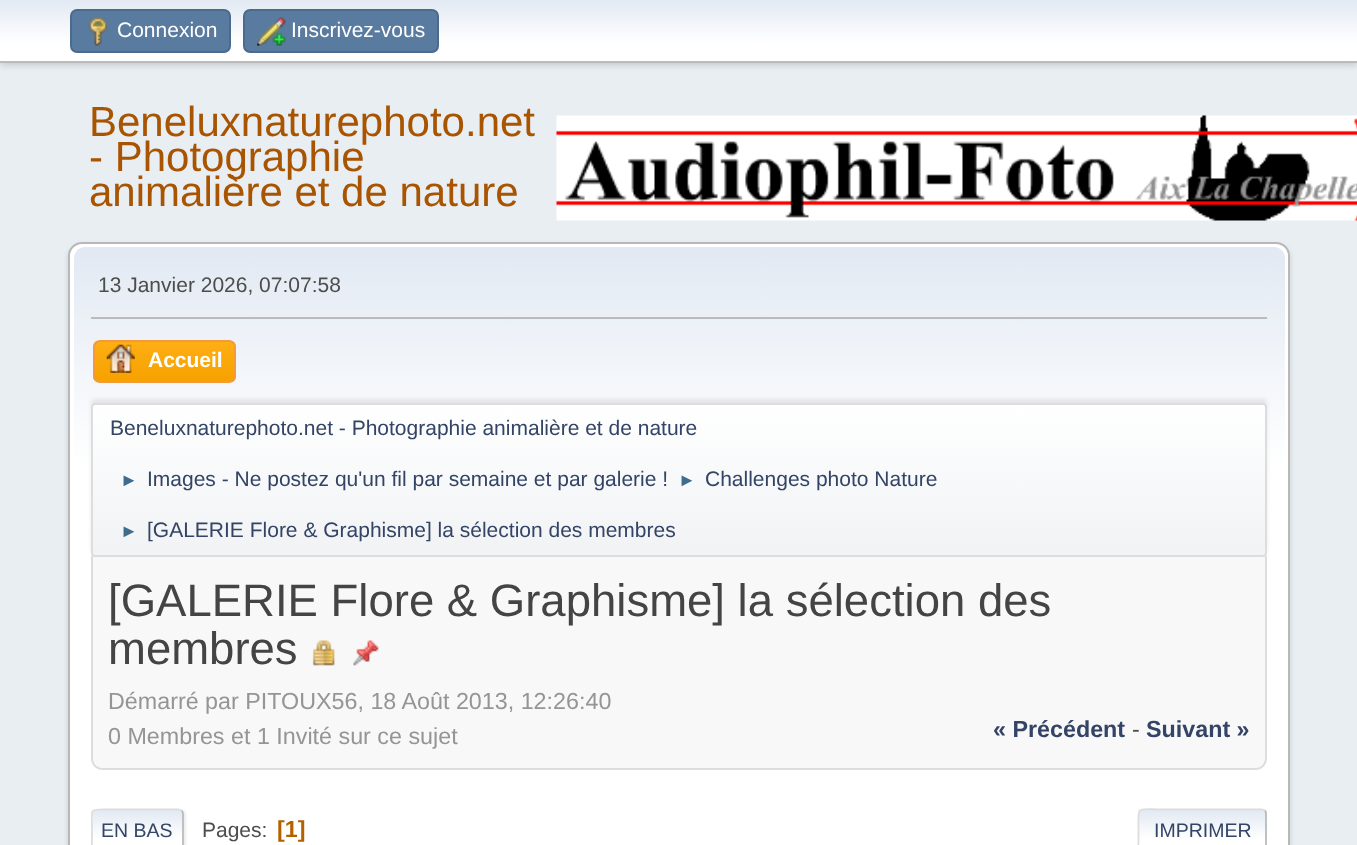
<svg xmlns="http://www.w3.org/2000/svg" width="1357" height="845">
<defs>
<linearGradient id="g1" gradientUnits="userSpaceOnUse" x1="679" y1="0" x2="679" y2="61"><stop offset="0" stop-color="#e2e9f3"/><stop offset="0.7" stop-color="#fff"/></linearGradient>
<linearGradient id="g2" gradientUnits="userSpaceOnUse" x1="679" y1="247" x2="679" y2="560"><stop offset="0" stop-color="#e2e9f3"/><stop offset="0.7" stop-color="#fff"/></linearGradient>
<clipPath id="clip1"><rect x="93" y="340" width="143" height="43" rx="7"/></clipPath>
<linearGradient id="g3" gradientUnits="userSpaceOnUse" x1="165" y1="341" x2="165" y2="382"><stop offset="0" stop-color="#ffae14"/><stop offset="1" stop-color="#f5a100"/></linearGradient>
<clipPath id="clip2"><rect x="91" y="403" width="1176" height="154" rx="4"/></clipPath>
<linearGradient id="g4" gradientUnits="userSpaceOnUse" x1="679" y1="404" x2="679" y2="555"><stop offset="0" stop-color="#fff"/><stop offset="0.95" stop-color="#f1f3f5"/></linearGradient>
<clipPath id="clip3"><rect x="91" y="809" width="93" height="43" rx="5"/></clipPath>
<linearGradient id="g5" gradientUnits="userSpaceOnUse" x1="137" y1="810" x2="137" y2="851"><stop offset="0" stop-color="#e2e9f3"/><stop offset="0.7" stop-color="#fff"/></linearGradient>
<clipPath id="clip4"><rect x="91" y="796" width="1176" height="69"/></clipPath>
<clipPath id="clip5"><rect x="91" y="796" width="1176" height="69"/></clipPath>
<clipPath id="clip6"><rect x="1138" y="809" width="129" height="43" rx="5"/></clipPath>
<linearGradient id="g6" gradientUnits="userSpaceOnUse" x1="1202" y1="810" x2="1202" y2="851"><stop offset="0" stop-color="#e2e9f3"/><stop offset="0.7" stop-color="#fff"/></linearGradient>
</defs>
<rect width="100%" height="100%" fill="#e9eef2"/>
<rect y="2" width="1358" height="63" fill="#00000029" filter="blur(3.5px)"/>
<rect width="1357" height="61" fill="url(#g1)"/>
<rect y="61" width="1357" height="2" fill="#bbb"/>
<rect x="71" y="10" width="159" height="42" rx="6" fill="#597b9f" stroke="#4a6b8c" stroke-width="2"/>
<image x="88" y="17" width="20" height="29" href="media/1.png"/>
<text x="117" y="37" style="font-family:Liberation Sans;font-size:21px;fill:#fff">Connexion</text>
<rect x="244" y="10" width="194" height="42" rx="6" fill="#597b9f" stroke="#4a6b8c" stroke-width="2"/>
<image x="257" y="17" width="29" height="29" href="media/2.png"/>
<text x="291" y="37" style="font-family:Liberation Sans;font-size:21px;fill:#fff">Inscrivez-vous</text>
<text x="89" y="136" style="font-family:Liberation Sans;font-size:42px;fill:#a85400">Beneluxnaturephoto.net</text>
<text x="89" y="171" style="font-family:Liberation Sans;font-size:42px;fill:#a85400">- Photographie</text>
<text x="89" y="206" style="font-family:Liberation Sans;font-size:42px;fill:#a85400">animalière et de nature</text>
<image x="556" y="115" width="801" height="106" href="media/3.png"/>
<rect x="68" y="245" width="1222" height="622" rx="14" fill="#00000024" filter="blur(2.5px)"/>
<rect x="69" y="243" width="1220" height="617" rx="13" fill="#fff" stroke="#b8b8b8" stroke-width="2"/>
<path d="M85 247h1189c6 0 11 5 11 11v302h-1211v-302c0-6 5-11 11-11z" fill="url(#g2)"/>
<rect x="91" y="317" width="1176" height="2" fill="#bbb"/>
<text x="98" y="292" style="font-family:Liberation Sans;font-size:21px;fill:#4d4d4d">13 Janvier 2026, 07:07:58</text>
<g clip-path="url(#clip1)">
<rect x="93" y="341" width="143" height="41" fill="url(#g3)"/>
</g>
<rect x="94" y="341" width="141" height="41" rx="6" fill="none" stroke="#f49a3a" stroke-width="2"/>
<image x="106" y="344" width="29" height="29" href="media/4.png"/>
<text x="148" y="367" style="font-family:Liberation Sans;font-size:21px;font-weight:bold;fill:#fff">Accueil</text>
<rect x="91" y="399" width="1176" height="154" rx="4" fill="#00000014" filter="blur(2px)"/>
<g clip-path="url(#clip2)">
<rect x="91" y="404" width="1176" height="151" fill="url(#g4)"/>
</g>
<rect x="92" y="404" width="1174" height="152" rx="3" fill="none" stroke="#ddd" stroke-width="2"/>
<text x="110" y="435" style="font-family:Liberation Sans;font-size:21px;fill:#346">Beneluxnaturephoto.net - Photographie animalière et de nature</text>
<text x="120" y="486" style="font-family:Liberation Sans;font-size:18px;fill:#3f6b8c">►</text>
<text x="147" y="486" style="font-family:Liberation Sans;font-size:21px;fill:#346">Images - Ne postez qu'un fil par semaine et par galerie !</text>
<text x="678" y="486" style="font-family:Liberation Sans;font-size:18px;fill:#3f6b8c">►</text>
<text x="705" y="486" style="font-family:Liberation Sans;font-size:21px;fill:#346">Challenges photo Nature</text>
<text x="120" y="537" style="font-family:Liberation Sans;font-size:18px;fill:#3f6b8c">►</text>
<text x="147" y="537" style="font-family:Liberation Sans;font-size:21px;fill:#346">[GALERIE Flore &amp; Graphisme] la sélection des membres</text>
<path d="M91 557h1176v201c0 6.5-5.5 12-12 12h-1152c-6.5 0-12-5.5-12-12z" fill="#f8f8f8"/>
<path d="M91 556h1176v202c0 7-5 12-12 12h-1152c-7 0-12-5-12-12zm2 0h1172v202c0 6-4 10-10 10h-1152c-6 0-10-4-10-10z" fill="#ddd" fill-rule="evenodd"/>
<text x="108" y="616" style="font-family:Liberation Sans;font-size:45.5px;fill:#444">[GALERIE Flore &amp; Graphisme] la sélection des</text>
<text x="108" y="664" style="font-family:Liberation Sans;font-size:45.5px;fill:#444">membres</text>
<image x="312" y="640" width="23" height="26" href="media/5.png"/>
<image x="353" y="640" width="26" height="26" href="media/6.png"/>
<text x="108" y="709" style="font-family:Liberation Sans;font-size:23.3px;fill:#959595">Démarré par PITOUX56, 18 Août 2013, 12:26:40</text>
<text x="108" y="744" style="font-family:Liberation Sans;font-size:23.3px;fill:#959595">0 Membres et 1 Invité sur ce sujet</text>
<text x="993" y="737" style="font-family:Liberation Sans;font-size:23.3px;font-weight:bold;fill:#346">« Précédent</text>
<text x="1132" y="737" style="font-family:Liberation Sans;font-size:23.3px;fill:#4d4d4d">-</text>
<text x="1146" y="737" style="font-family:Liberation Sans;font-size:23.3px;font-weight:bold;fill:#346">Suivant »</text>
<rect x="93" y="810" width="93" height="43" rx="5" fill="#dddddd91" filter="blur(1px)"/>
<g clip-path="url(#clip3)">
<rect x="91" y="810" width="93" height="35" fill="url(#g5)"/>
</g>
<path d="M181.5 810.5c1 1 1.5 2 1.5 3.5v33c0 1-.5 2.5-1.5 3" fill="none" stroke="#bbb" stroke-width="1.8"/>
<g clip-path="url(#clip4)">
<path d="M93 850c-2-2-1-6-1-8.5v-11c0-23-4.5-21 18-21h68.5l3 1" fill="none" stroke="#ddd" stroke-width="1.8"/>
</g>
<text x="101" y="837" style="font-family:Liberation Sans;font-size:19.5px;fill:#346">EN BAS</text>
<text x="202" y="837" style="font-family:Liberation Sans;font-size:21px;fill:#4d4d4d">Pages:</text>
<text x="277" y="837" style="font-family:Liberation Sans;font-size:23.3px;font-weight:bold;fill:#b46100">[1]</text>
<g clip-path="url(#clip5)">
<rect x="1139" y="810" width="130" height="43" rx="5" fill="#dddddd91" filter="blur(1px)"/>
</g>
<g clip-path="url(#clip6)">
<rect x="1138" y="810" width="129" height="35" fill="url(#g6)"/>
</g>
<path d="M1265 810.5c.5 1 1 2 1 3.5v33c0 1-.5 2.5-1 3" fill="none" stroke="#bbb" stroke-width="1.8"/>
<path d="M1139.5 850c-2-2-1-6-1-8.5v-11c0-26-3.5-21 24-21h99.5l3 1" fill="none" stroke="#ddd" stroke-width="1.8"/>
<text x="1154" y="837" style="font-family:Liberation Sans;font-size:19.5px;fill:#346">IMPRIMER</text>
</svg>
